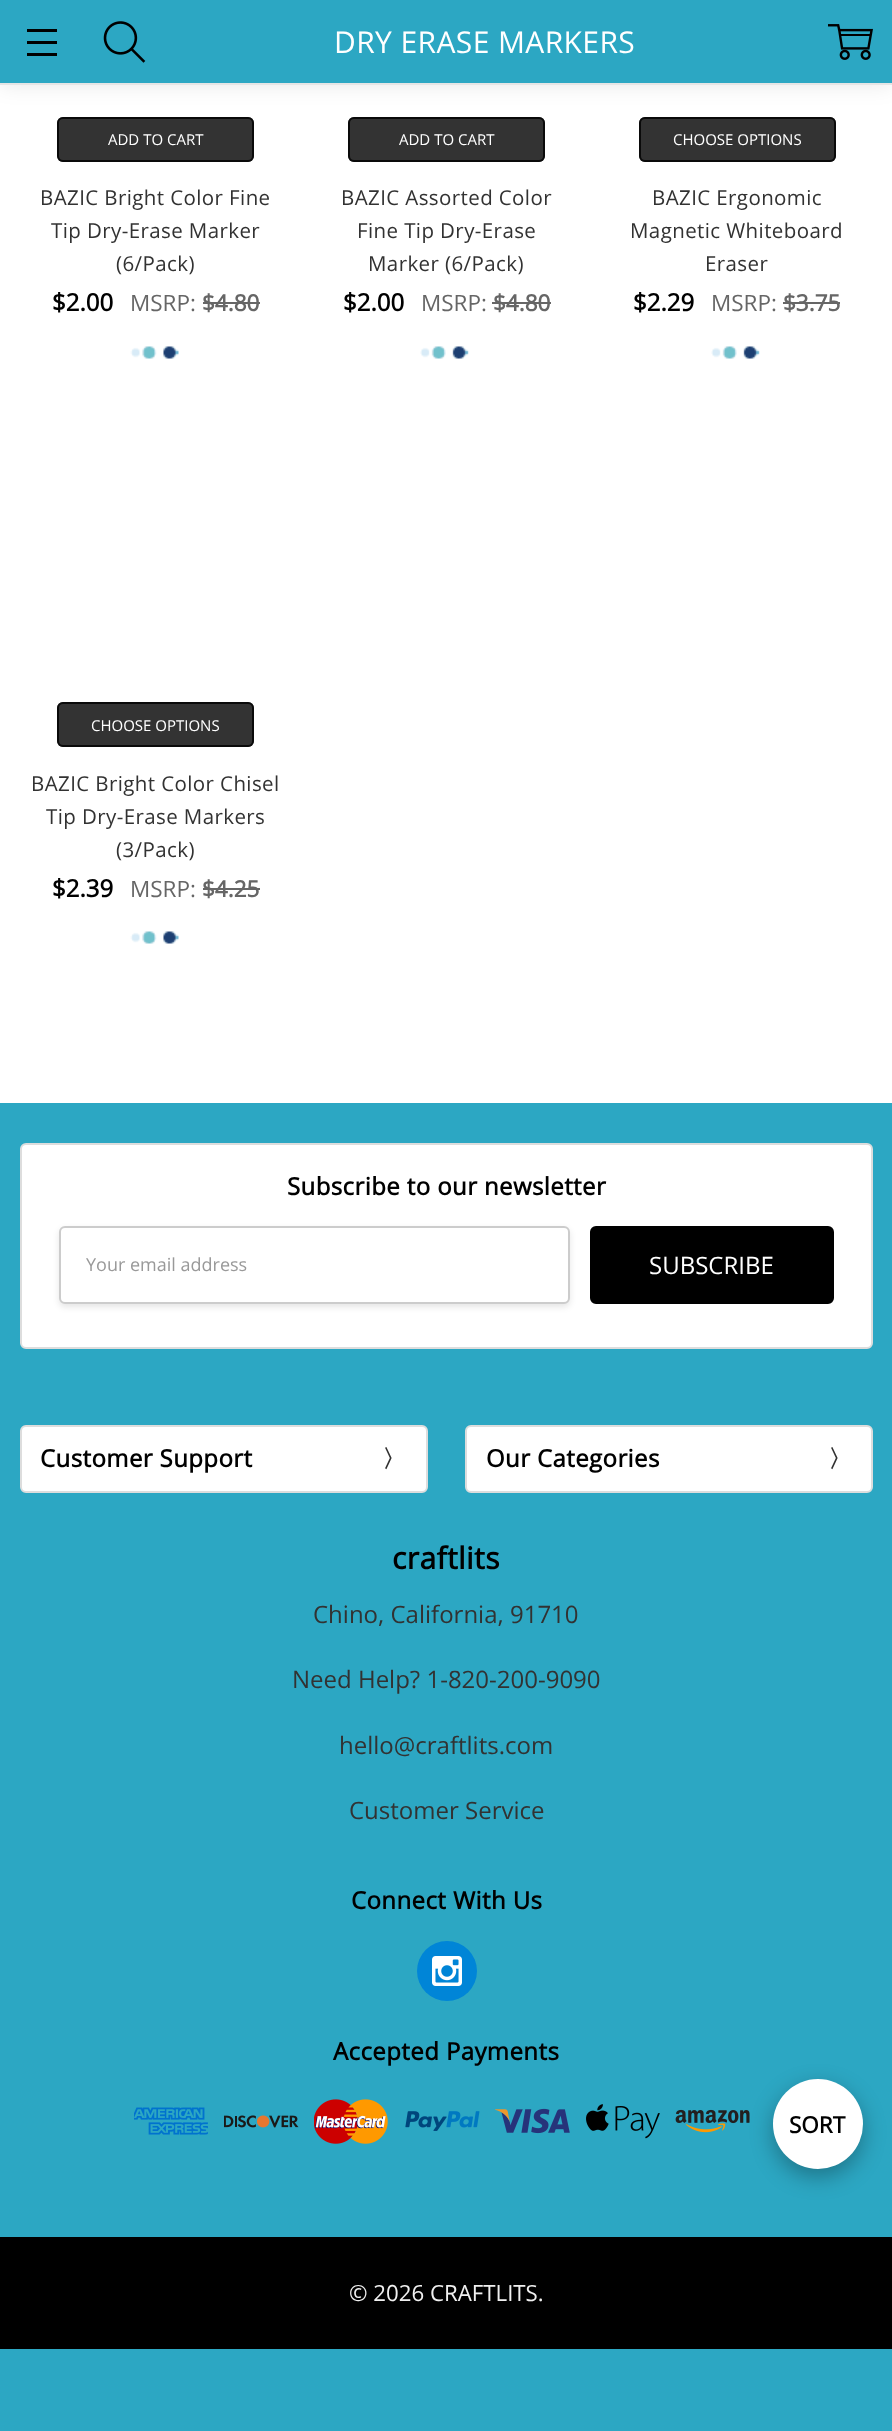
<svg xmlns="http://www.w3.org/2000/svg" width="892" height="2431">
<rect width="100%" height="100%" fill="#fff"/>
<rect x="57" y="117" width="197" height="45" rx="6" fill="#333"/>
<rect x="58" y="118" width="195" height="43" rx="5" fill="none" stroke="#000000cc" stroke-width="2"/>
<rect x="348" y="117" width="197" height="45" rx="6" fill="#333"/>
<rect x="349" y="118" width="195" height="43" rx="5" fill="none" stroke="#000000cc" stroke-width="2"/>
<rect x="639" y="117" width="197" height="45" rx="6" fill="#333"/>
<rect x="640" y="118" width="195" height="43" rx="5" fill="none" stroke="#000000cc" stroke-width="2"/>
<rect width="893" height="84" fill="#0000001a" filter="blur(11px)"/>
<rect width="892" height="83" fill="#2ca7c3"/>
<rect y="83" width="892" height="2" fill="#e5e5e5"/>
<rect x="27" y="41" width="30" height="3" fill="#000"/>
<rect x="27" y="29" width="30" height="3" fill="#000"/>
<rect x="27" y="53" width="30" height="3" fill="#000"/>
<image x="103" y="21" width="43" height="42" href="media/1.png"/>
<image x="828" y="24" width="45" height="36" href="media/2.png"/>
<text x="334" y="53" style="font-family:Open Sans;font-size:30px;letter-spacing:0.4px;fill:#fff">DRY ERASE MARKERS</text>
<rect y="1103" width="892" height="1328" fill="#2ca7c3"/>
<image x="675" y="2109" width="75" height="24" href="media/12.png"/>
<rect x="773" y="2087" width="90" height="90" rx="45" fill="#0000004d" filter="blur(11px)"/>
<circle cx="818" cy="2124" r="45" fill="#fff"/>
<text x="789" y="2133" style="font-family:Open Sans;font-size:22.5px;font-weight:bold;fill:#000">SORT</text>
<text x="108" y="145" style="font-family:Open Sans;font-size:15px;fill:#fff">ADD TO CART</text>
<text x="40" y="205" style="font-family:Open Sans;font-size:20.5px;letter-spacing:0.4px;fill:#323232">BAZIC Bright Color Fine</text>
<text x="51" y="238" style="font-family:Open Sans;font-size:20.5px;letter-spacing:0.4px;fill:#323232">Tip Dry-Erase Marker</text>
<text x="116" y="271" style="font-family:Open Sans;font-size:20.5px;letter-spacing:0.4px;fill:#323232">(6/Pack)</text>
<text x="52" y="311" style="font-family:Open Sans;font-size:24px;font-weight:bold;fill:#000">$2.00</text>
<text x="130" y="311" style="font-family:Open Sans;font-size:22.5px;fill:#666">MSRP:</text>
<text x="202" y="311" style="font-family:Open Sans;font-size:22.5px;font-weight:bold;fill:#666">$4.80</text>
<rect x="203" y="302" width="57" height="2" fill="#666"/>
<image x="130" y="346" width="49" height="13" href="media/3.png"/>
<text x="399" y="145" style="font-family:Open Sans;font-size:15px;fill:#fff">ADD TO CART</text>
<text x="341" y="205" style="font-family:Open Sans;font-size:20.5px;letter-spacing:0.4px;fill:#323232">BAZIC Assorted Color</text>
<text x="357" y="238" style="font-family:Open Sans;font-size:20.5px;letter-spacing:0.4px;fill:#323232">Fine Tip Dry-Erase</text>
<text x="368" y="271" style="font-family:Open Sans;font-size:20.5px;letter-spacing:0.4px;fill:#323232">Marker (6/Pack)</text>
<text x="343" y="311" style="font-family:Open Sans;font-size:24px;font-weight:bold;fill:#000">$2.00</text>
<text x="421" y="311" style="font-family:Open Sans;font-size:22.5px;fill:#666">MSRP:</text>
<text x="493" y="311" style="font-family:Open Sans;font-size:22.5px;font-weight:bold;fill:#666">$4.80</text>
<rect x="492" y="302" width="59" height="2" fill="#666"/>
<image x="420" y="346" width="49" height="13" href="media/4.png"/>
<text x="673" y="145" style="font-family:Open Sans;font-size:15px;fill:#fff">CHOOSE OPTIONS</text>
<text x="652" y="205" style="font-family:Open Sans;font-size:20.5px;letter-spacing:0.4px;fill:#323232">BAZIC Ergonomic</text>
<text x="630" y="238" style="font-family:Open Sans;font-size:20.5px;letter-spacing:0.4px;fill:#323232">Magnetic Whiteboard</text>
<text x="705" y="271" style="font-family:Open Sans;font-size:20.5px;letter-spacing:0.4px;fill:#323232">Eraser</text>
<text x="633" y="311" style="font-family:Open Sans;font-size:24px;font-weight:bold;fill:#000">$2.29</text>
<text x="711" y="311" style="font-family:Open Sans;font-size:22.5px;fill:#666">MSRP:</text>
<text x="783" y="311" style="font-family:Open Sans;font-size:22.5px;font-weight:bold;fill:#666">$3.75</text>
<rect x="783" y="302" width="57" height="2" fill="#666"/>
<image x="711" y="346" width="49" height="13" href="media/4.png"/>
<rect x="57" y="702" width="197" height="45" rx="6" fill="#333"/>
<rect x="58" y="703" width="195" height="43" rx="5" fill="none" stroke="#000000cc" stroke-width="2"/>
<text x="91" y="731" style="font-family:Open Sans;font-size:15px;fill:#fff">CHOOSE OPTIONS</text>
<text x="31" y="791" style="font-family:Open Sans;font-size:20.5px;letter-spacing:0.4px;fill:#323232">BAZIC Bright Color Chisel</text>
<text x="46" y="824" style="font-family:Open Sans;font-size:20.5px;letter-spacing:0.4px;fill:#323232">Tip Dry-Erase Markers</text>
<text x="116" y="857" style="font-family:Open Sans;font-size:20.5px;letter-spacing:0.4px;fill:#323232">(3/Pack)</text>
<text x="52" y="897" style="font-family:Open Sans;font-size:24px;font-weight:bold;fill:#000">$2.39</text>
<text x="130" y="897" style="font-family:Open Sans;font-size:22.5px;fill:#666">MSRP:</text>
<text x="202" y="897" style="font-family:Open Sans;font-size:22.5px;font-weight:bold;fill:#666">$4.25</text>
<rect x="203" y="888" width="57" height="2" fill="#666"/>
<image x="130" y="931" width="49" height="13" href="media/3.png"/>
<rect x="21" y="1144" width="851" height="204" rx="5" fill="#fff" stroke="#ddd" stroke-width="2"/>
<text x="287" y="1195" style="font-family:Open Sans;font-size:24px;font-weight:bold;letter-spacing:0.4px;fill:#000">Subscribe to our newsletter</text>
<rect x="59" y="1229" width="511" height="78" rx="6" fill="#0000001a" filter="blur(3px)"/>
<rect x="60" y="1227" width="509" height="76" rx="5" fill="#fff" stroke="#ccc" stroke-width="2"/>
<text x="86" y="1271" style="font-family:Open Sans;font-size:18px;fill:#999">Your email address</text>
<rect x="591" y="1227" width="242" height="76" rx="5" fill="#000" stroke="#000" stroke-width="2"/>
<text x="649" y="1274" style="font-family:Open Sans;font-size:24px;fill:#fff">SUBSCRIBE</text>
<rect x="21" y="1426" width="406" height="66" rx="5" fill="#fff" stroke="#ddd" stroke-width="2"/>
<text x="40" y="1467" style="font-family:Open Sans;font-size:24px;font-weight:bold;letter-spacing:0.4px;fill:#000">Customer Support</text>
<text x="382" y="1467" style="font-family:WenQuanYi Zen Hei;font-size:24px;font-weight:bold;letter-spacing:0.4px;fill:#323232">〉</text>
<rect x="466" y="1426" width="406" height="66" rx="5" fill="#fff" stroke="#ddd" stroke-width="2"/>
<text x="486" y="1467" style="font-family:Open Sans;font-size:24px;font-weight:bold;letter-spacing:0.4px;fill:#000">Our Categories</text>
<text x="828" y="1467" style="font-family:WenQuanYi Zen Hei;font-size:24px;font-weight:bold;letter-spacing:0.4px;fill:#323232">〉</text>
<text x="392" y="1569" style="font-family:Open Sans;font-size:30px;font-weight:bold;letter-spacing:0.4px;fill:#000">craftlits</text>
<text x="313" y="1623" style="font-family:Open Sans;font-size:24px;fill:#323232">Chino, California, 91710</text>
<text x="292" y="1688" style="font-family:Open Sans;font-size:24px;fill:#323232">Need Help? 1-820-200-9090</text>
<text x="339" y="1754" style="font-family:Open Sans;font-size:24px;fill:#323232">hello@craftlits.com</text>
<text x="349" y="1819" style="font-family:Open Sans;font-size:24px;fill:#323232">Customer Service</text>
<text x="351" y="1909" style="font-family:Open Sans;font-size:24px;font-weight:bold;letter-spacing:0.4px;fill:#000">Connect With Us</text>
<circle cx="447" cy="1971" r="30" fill="#0085d7"/>
<image x="432" y="1956" width="30" height="30" href="media/5.png"/>
<text x="333" y="2060" style="font-family:Open Sans;font-size:24px;font-weight:bold;letter-spacing:0.4px;fill:#000">Accepted Payments</text>
<image x="134" y="2107" width="74" height="28" href="media/6.png"/>
<image x="224" y="2115" width="75" height="13" href="media/7.png"/>
<image x="314" y="2099" width="74" height="45" href="media/8.png"/>
<image x="405" y="2111" width="75" height="20" href="media/9.png"/>
<image x="495" y="2108" width="75" height="26" href="media/10.png"/>
<image x="586" y="2104" width="74" height="35" href="media/11.png"/>
<rect y="2237" width="892" height="112" fill="#000"/>
<text x="349" y="2301" style="font-family:Open Sans;font-size:22.25px;fill:#f0f0f0">© 2026 CRAFTLITS.</text>
</svg>
